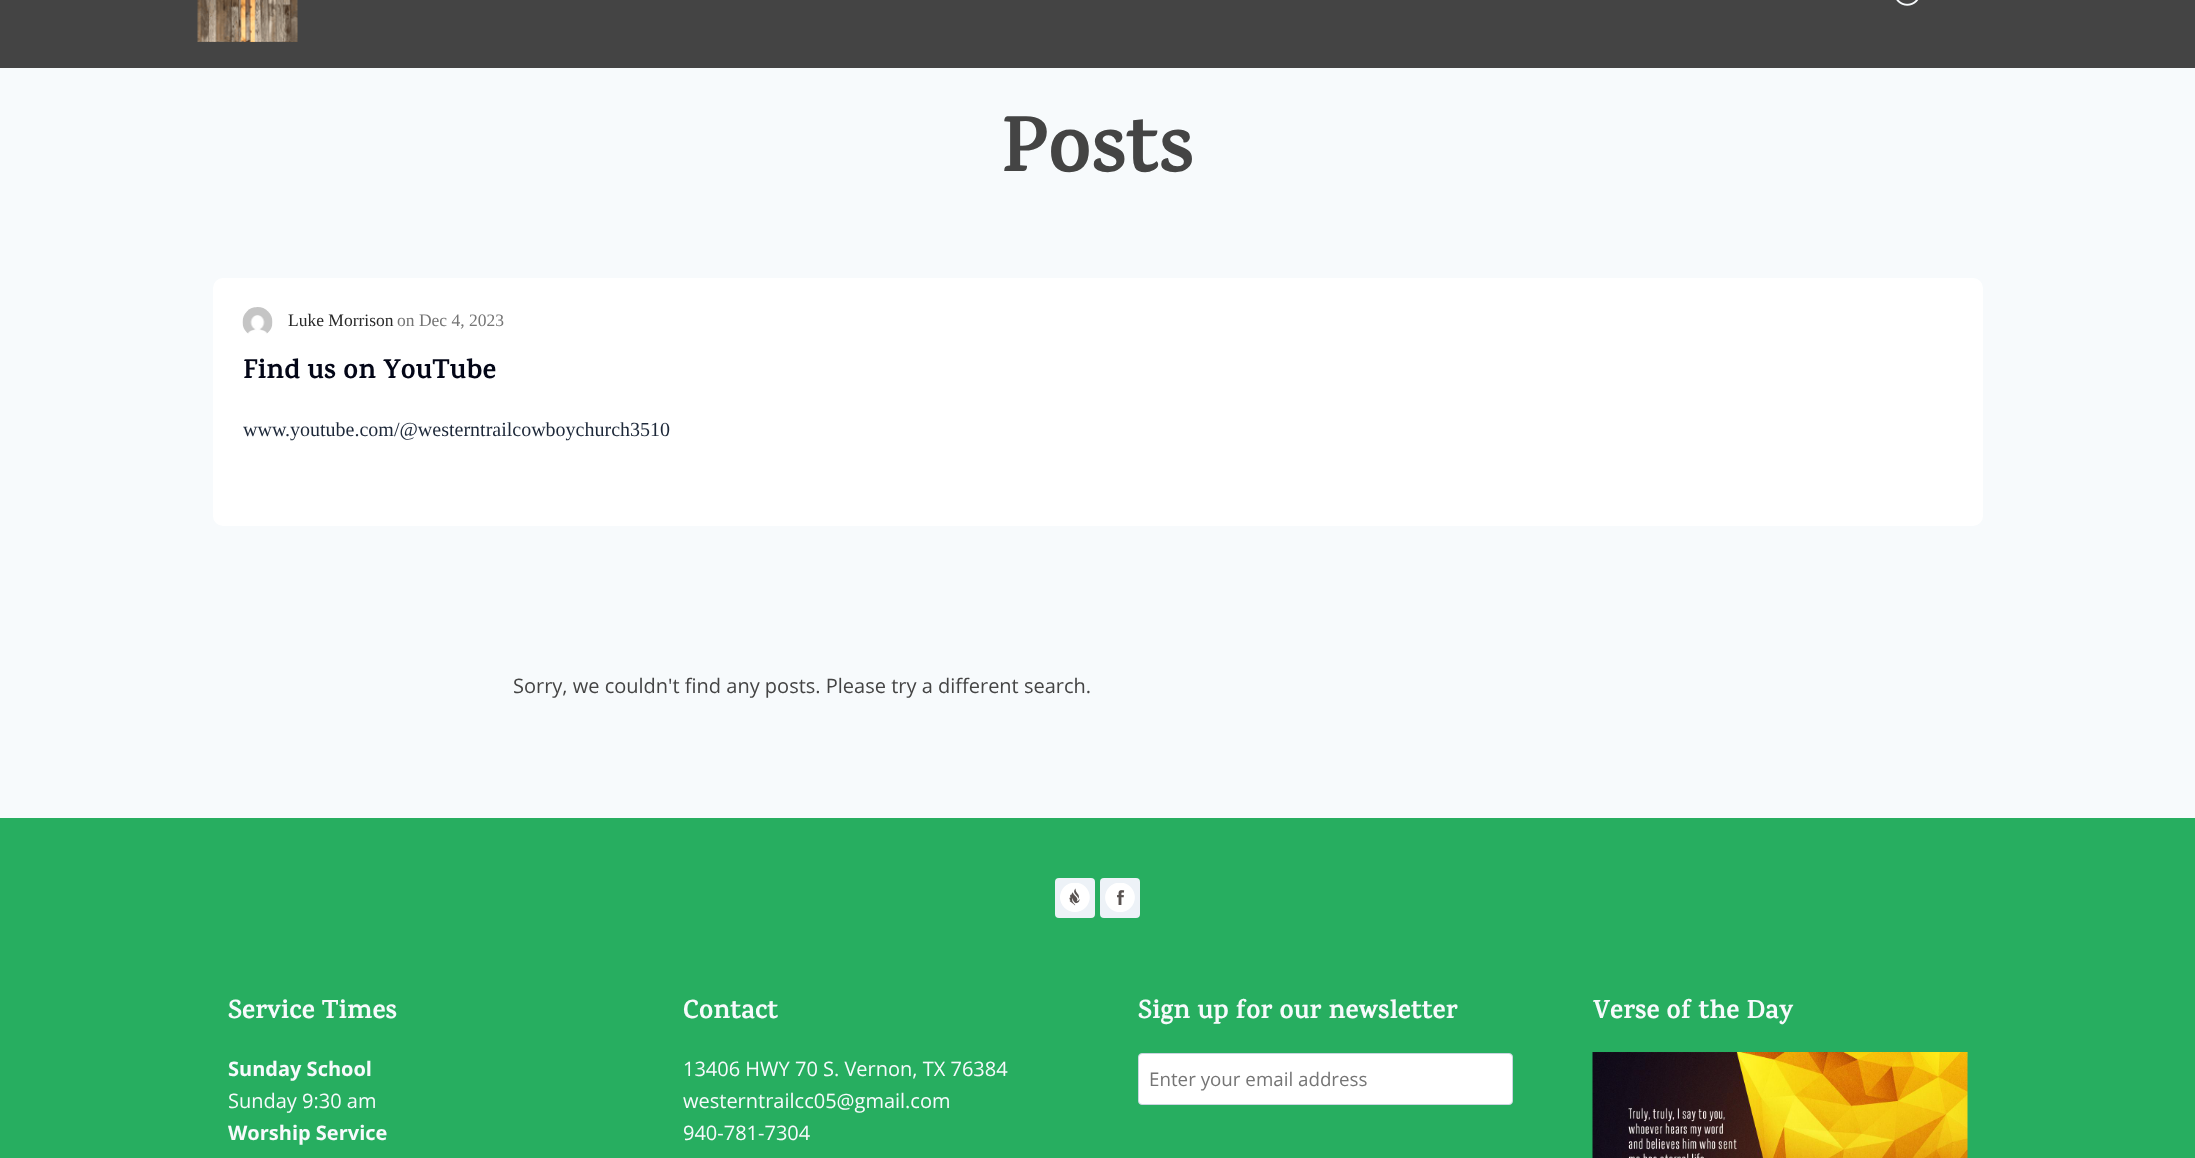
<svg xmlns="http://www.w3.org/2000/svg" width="2195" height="1158">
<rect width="100%" height="100%" fill="#27ae60"/>
<rect width="2195" height="68" fill="#444"/>
<image x="197" y="0" width="101" height="42" href="media/1.png"/>
<image x="1896" y="0" width="23" height="6" href="media/2.png"/>
<rect y="68" width="2195" height="750" fill="#f7fafc"/>
<text x="1001" y="171" style="font-family:Karma;font-size:80px;font-weight:bold;fill:#444">Posts</text>
<rect x="213" y="278" width="1770" height="248" rx="10" fill="#fff"/>
<image x="242" y="307" width="31" height="27" href="media/3.png"/>
<text x="288" y="326" style="font-family:Liberation Serif;font-size:17.5px;fill:#292929">Luke Morrison</text>
<text x="397" y="326" style="font-family:Liberation Serif;font-size:17.5px;fill:#757575">on Dec 4, 2023</text>
<text x="243" y="378" style="font-family:Karma;font-size:27.5px;font-weight:bold;fill:#030617">Find us on YouTube</text>
<text x="243" y="436" style="font-family:Liberation Serif;font-size:20px;fill:#1d2839">www.youtube.com/@westerntrailcowboychurch3510</text>
<text x="513" y="693" style="font-family:Open Sans;font-size:20px;fill:#444">Sorry, we couldn't find any posts. Please try a different search.</text>
<rect x="1055" y="878" width="40" height="40" rx="4" fill="#edf2f7"/>
<image x="1060" y="883" width="30" height="29" href="media/4.png"/>
<rect x="1100" y="878" width="40" height="40" rx="4" fill="#edf2f7"/>
<image x="1105" y="883" width="30" height="29" href="media/5.png"/>
<text x="228" y="1018" style="font-family:Karma;font-size:26.4px;font-weight:bold;fill:#f7fafc">Service Times</text>
<text x="228" y="1076" style="font-family:Open Sans;font-size:20px;font-weight:bold;fill:#f7fafc">Sunday School</text>
<text x="228" y="1108" style="font-family:Open Sans;font-size:20px;fill:#f7fafc">Sunday 9:30 am</text>
<text x="228" y="1140" style="font-family:Open Sans;font-size:20px;font-weight:bold;fill:#f7fafc">Worship Service</text>
<text x="683" y="1018" style="font-family:Karma;font-size:26.4px;font-weight:bold;fill:#f7fafc">Contact</text>
<text x="683" y="1076" style="font-family:Open Sans;font-size:20px;fill:#f7fafc">13406 HWY 70 S. Vernon, TX 76384</text>
<text x="683" y="1108" style="font-family:Open Sans;font-size:20px;fill:#f7fafc">westerntrailcc05@gmail.com</text>
<text x="683" y="1140" style="font-family:Open Sans;font-size:20px;fill:#f7fafc">940-781-7304</text>
<text x="1138" y="1018" style="font-family:Karma;font-size:26.4px;font-weight:bold;fill:#f7fafc">Sign up for our newsletter</text>
<rect x="1138.5" y="1053.5" width="374" height="51" rx="3.5" fill="#fff" stroke="#cbd5e0"/>
<text x="1149" y="1086" style="font-family:Open Sans;font-size:18.75px;fill:#757575">Enter your email address</text>
<text x="1593" y="1018" style="font-family:Karma;font-size:26.4px;font-weight:bold;fill:#f7fafc">Verse of the Day</text>
<image x="1592" y="1052" width="376" height="106" href="media/6.png"/>
</svg>
